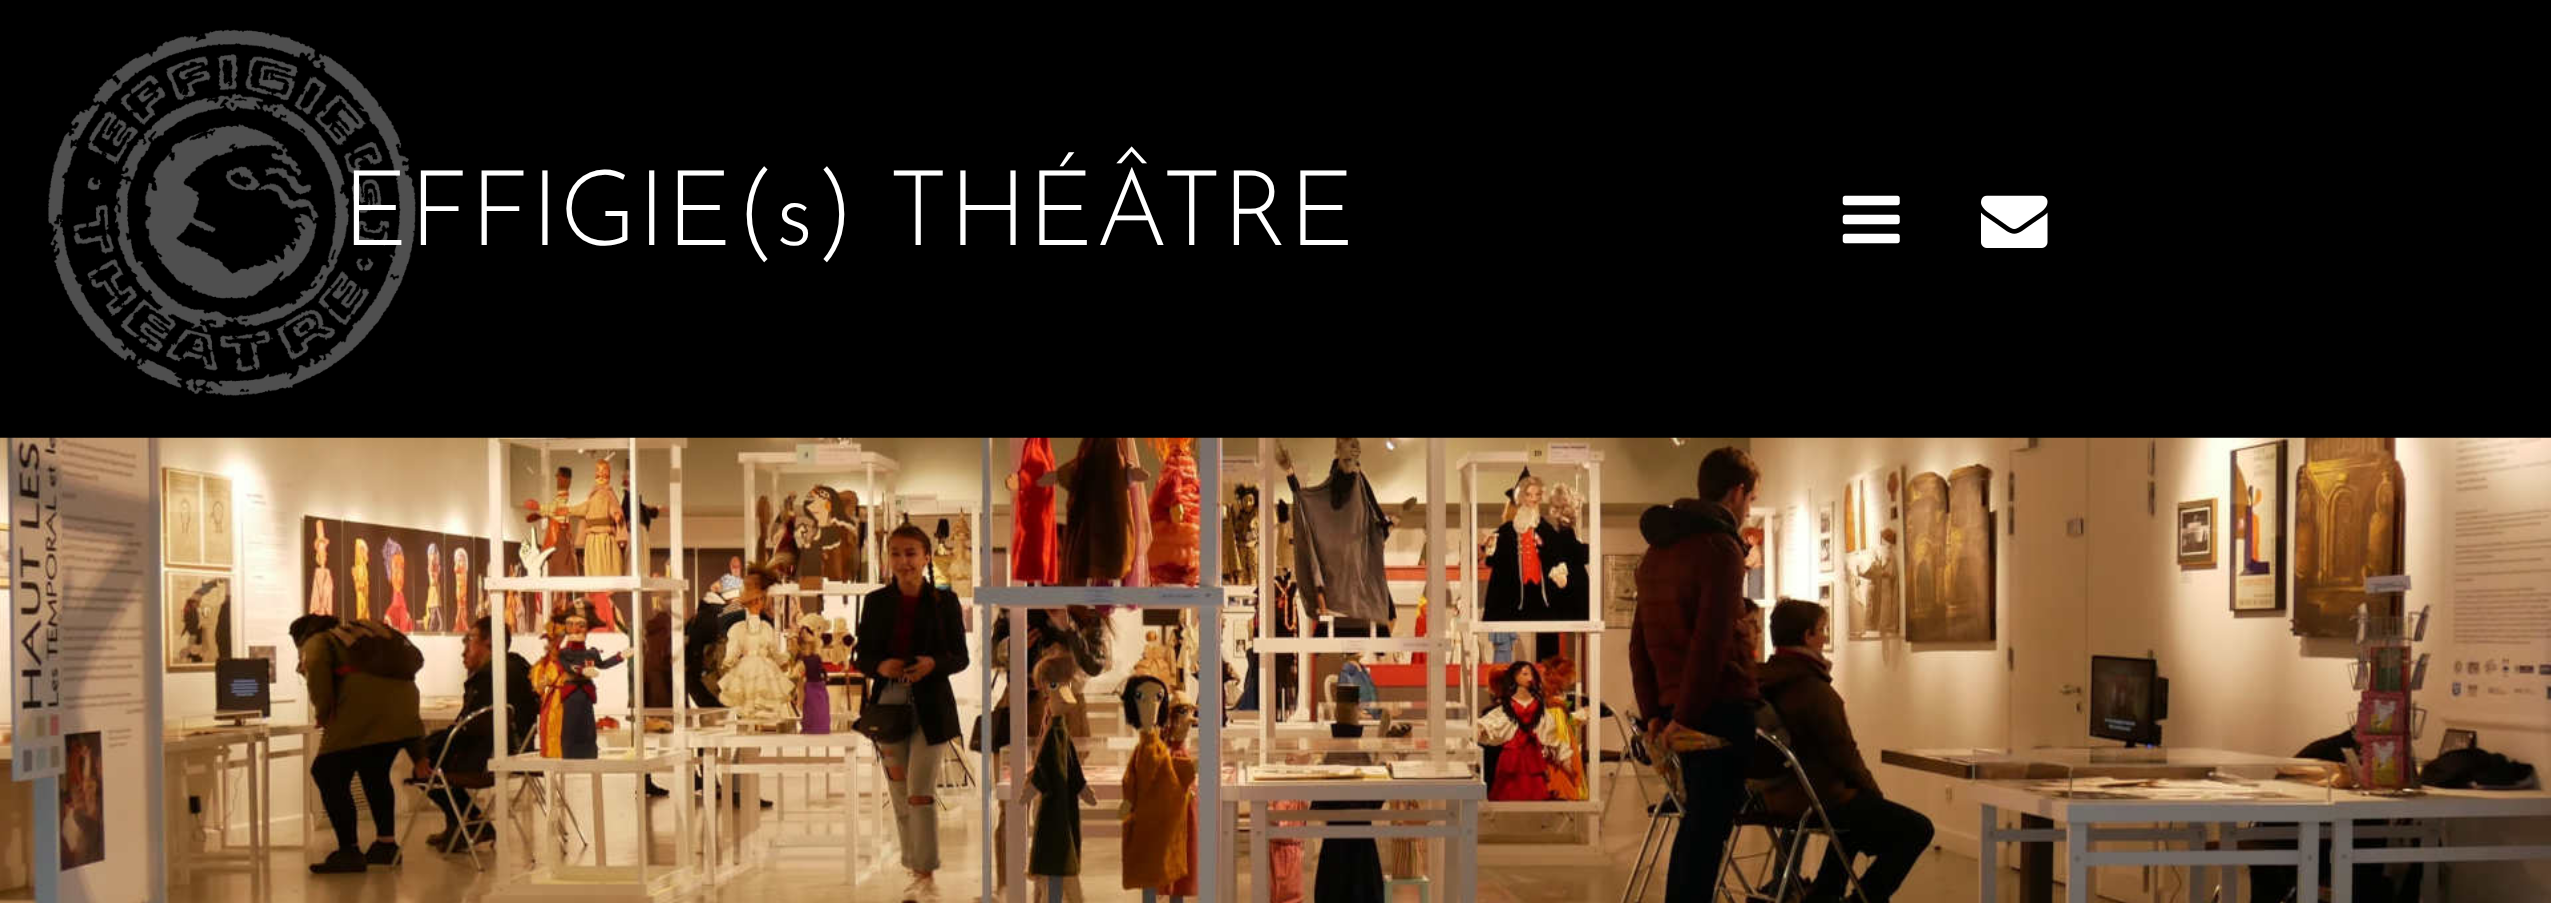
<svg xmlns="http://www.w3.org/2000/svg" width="2551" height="903">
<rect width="100%" height="100%" fill="#000"/>
<image x="48" y="29" width="368" height="367" href="media/1.png"/>
<text x="342" y="245" style="font-family:Josefin Sans;font-size:105px;font-weight:100;fill:#fff">EFFIGIE(s) THÉÂTRE</text>
<image x="1842" y="195" width="58" height="49" href="media/2.png"/>
<image x="1981" y="195" width="67" height="53" href="media/3.png"/>
<image x="0" y="437" width="2551" height="466" href="media/4.png"/>
</svg>
